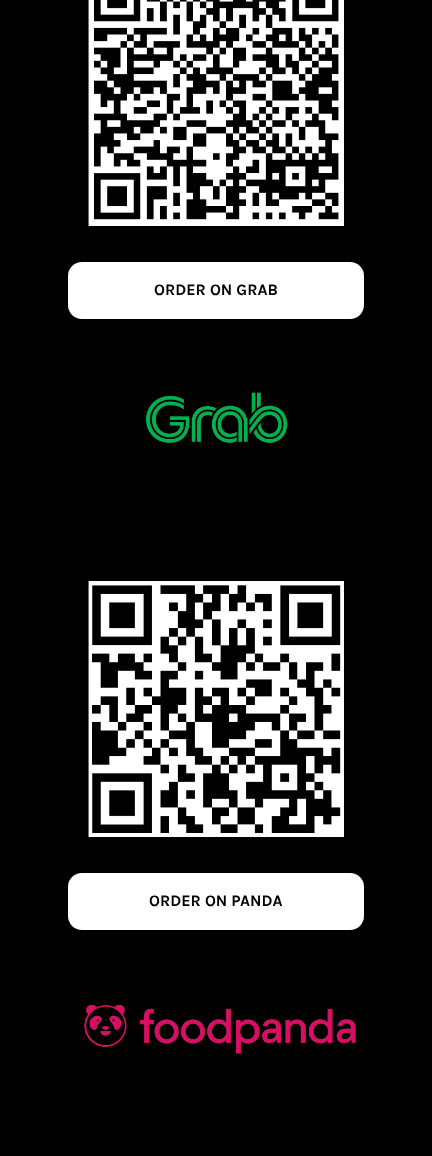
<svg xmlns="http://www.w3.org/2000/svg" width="432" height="1156">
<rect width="100%" height="100%" fill="#000"/>
<image x="88" y="0" width="256" height="226" href="media/1.png"/>
<rect x="68" y="262" width="296" height="57" rx="14" fill="#fff"/>
<text x="154" y="295" style="font-family:Karla;font-size:16px;font-weight:bold;fill:#000">ORDER ON GRAB</text>
<image x="145" y="392" width="143" height="51" href="media/2.png"/>
<image x="88" y="581" width="256" height="256" href="media/3.png"/>
<rect x="68" y="873" width="296" height="57" rx="14" fill="#fff"/>
<text x="149" y="906" style="font-family:Karla;font-size:16px;font-weight:bold;fill:#000">ORDER ON PANDA</text>
<image x="84" y="1004" width="272" height="50" href="media/4.png"/>
</svg>
